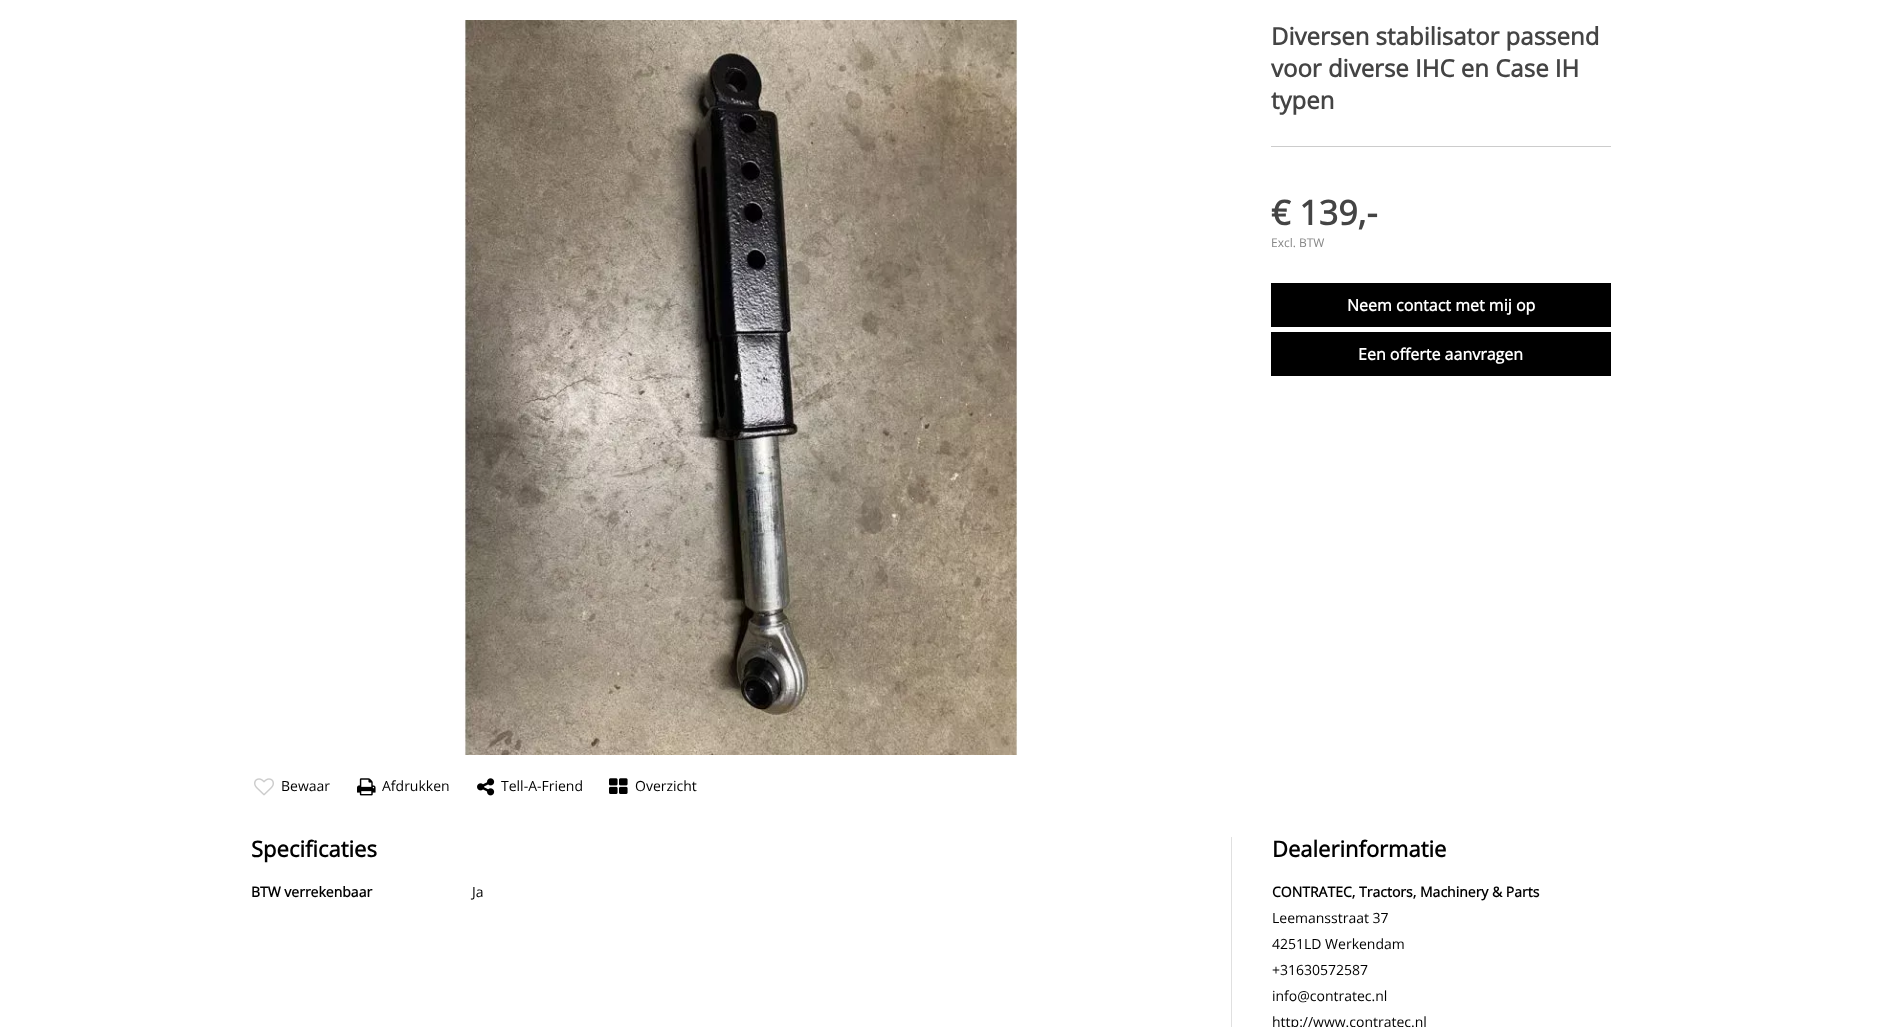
<svg xmlns="http://www.w3.org/2000/svg" width="1902" height="1027">
<rect width="100%" height="100%" fill="#fff"/>
<image x="463" y="20" width="555" height="735" href="media/1.png"/>
<text x="1271" y="45" style="font-family:Open Sans;font-size:24px;font-weight:bold;fill:#444">Diversen stabilisator passend</text>
<text x="1271" y="77" style="font-family:Open Sans;font-size:24px;font-weight:bold;fill:#444">voor diverse IHC en Case IH</text>
<text x="1271" y="109" style="font-family:Open Sans;font-size:24px;font-weight:bold;fill:#444">typen</text>
<rect x="1271" y="146" width="340" height="1" fill="#ccc"/>
<text x="1271" y="225" style="font-family:Open Sans;font-size:34px;font-weight:bold;fill:#444">€ 139,-</text>
<text x="1271" y="247" style="font-family:Open Sans;font-size:12px;fill:#878787">Excl. BTW</text>
<rect x="1271" y="283" width="340" height="44" fill="#000"/>
<text x="1347" y="311" style="font-family:Open Sans;font-size:16px;font-weight:bold;fill:#fff">Neem contact met mij op</text>
<rect x="1271" y="332" width="340" height="44" fill="#000"/>
<text x="1358" y="360" style="font-family:Open Sans;font-size:16px;font-weight:bold;fill:#fff">Een offerte aanvragen</text>
<image x="254" y="778" width="20" height="18" href="media/2.png"/>
<text x="281" y="791" style="font-family:Open Sans;font-size:14px;fill:#000">Bewaar</text>
<image x="357" y="778" width="19" height="18" href="media/3.png"/>
<text x="382" y="791" style="font-family:Open Sans;font-size:14px;fill:#000">Afdrukken</text>
<image x="477" y="778" width="18" height="18" href="media/4.png"/>
<text x="501" y="791" style="font-family:Open Sans;font-size:14px;fill:#000">Tell-A-Friend</text>
<image x="609" y="778" width="19" height="16" href="media/5.png"/>
<text x="635" y="791" style="font-family:Open Sans;font-size:14px;fill:#000">Overzicht</text>
<text x="251" y="857" style="font-family:Open Sans;font-size:22px;font-weight:bold;fill:#000">Specificaties</text>
<text x="251" y="897" style="font-family:Open Sans;font-size:14px;font-weight:bold;fill:#000">BTW verrekenbaar</text>
<text x="472" y="897" style="font-family:Open Sans;font-size:14px;fill:#000">Ja</text>
<rect x="1231" y="837" width="1" height="190" fill="#e0e0e0"/>
<text x="1272" y="857" style="font-family:Open Sans;font-size:22px;font-weight:bold;fill:#000">Dealerinformatie</text>
<text x="1272" y="897" style="font-family:Open Sans;font-size:14px;font-weight:bold;fill:#000">CONTRATEC, Tractors, Machinery &amp; Parts</text>
<text x="1272" y="923" style="font-family:Open Sans;font-size:14px;fill:#000">Leemansstraat 37</text>
<text x="1272" y="949" style="font-family:Open Sans;font-size:14px;fill:#000">4251LD Werkendam</text>
<text x="1272" y="975" style="font-family:Open Sans;font-size:14px;fill:#000">+31630572587</text>
<text x="1272" y="1001" style="font-family:Open Sans;font-size:14px;fill:#000">info@contratec.nl</text>
<text x="1272" y="1027" style="font-family:Open Sans;font-size:14px;fill:#000">http://www.contratec.nl</text>
</svg>
